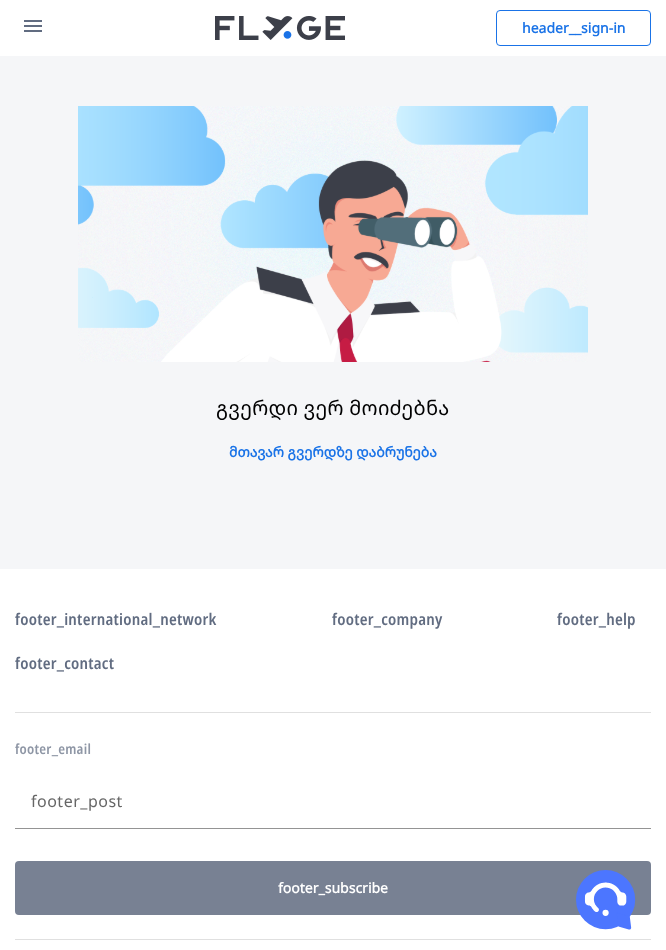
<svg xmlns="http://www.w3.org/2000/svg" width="666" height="950">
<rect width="100%" height="100%" fill="#fff"/>
<image x="24" y="20" width="18" height="12" href="media/1.png"/>
<image x="215" y="16" width="130" height="24" href="media/2.png"/>
<rect x="496.5" y="10.5" width="154" height="35" rx="3.5" fill="none" stroke="#1a73e7"/>
<text x="522" y="33" style="font-family:Noto Sans Georgian;font-size:14px;font-weight:bold;fill:#1a73e7">header__sign-in</text>
<rect y="56" width="666" height="513" fill="#f5f6f8"/>
<image x="78" y="106" width="510" height="256" href="media/3.png"/>
<text x="216" y="415" style="font-family:Noto Sans Georgian;font-size:20px;letter-spacing:0.25px;fill:#000">გვერდი ვერ მოიძებნა</text>
<text x="229" y="457" style="font-family:Noto Sans Georgian;font-size:14px;font-weight:bold;fill:#1a73e7">მთავარ გვერდზე დაბრუნება</text>
<text x="15" y="625" style="font-family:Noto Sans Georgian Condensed;font-size:16px;font-weight:600;letter-spacing:0.25px;fill:#616c81">footer_international_network</text>
<text x="332" y="625" style="font-family:Noto Sans Georgian Condensed;font-size:16px;font-weight:600;letter-spacing:0.25px;fill:#616c81">footer_company</text>
<text x="557" y="625" style="font-family:Noto Sans Georgian Condensed;font-size:16px;font-weight:600;letter-spacing:0.25px;fill:#616c81">footer_help</text>
<text x="15" y="669" style="font-family:Noto Sans Georgian Condensed;font-size:16px;font-weight:600;letter-spacing:0.25px;fill:#616c81">footer_contact</text>
<rect x="15" y="712" width="636" height="1" fill="#e0e0e0"/>
<text x="15" y="754" style="font-family:Noto Sans Georgian Condensed;font-size:14px;font-weight:600;letter-spacing:0.25px;fill:#8e96a5">footer_email</text>
<text x="31" y="807" style="font-family:Noto Sans Georgian;font-size:16px;letter-spacing:0.5px;fill:#666">footer_post</text>
<rect x="15" y="828" width="636" height="1" fill="#949494"/>
<rect x="15" y="861" width="636" height="54" rx="4" fill="#788193"/>
<text x="278" y="893" style="font-family:Noto Sans Georgian;font-size:14px;font-weight:bold;fill:#fff">footer_subscribe</text>
<rect x="15" y="939" width="636" height="1" fill="#e0e0e0"/>
<image x="576" y="870" width="60" height="60" href="media/4.png"/>
</svg>
